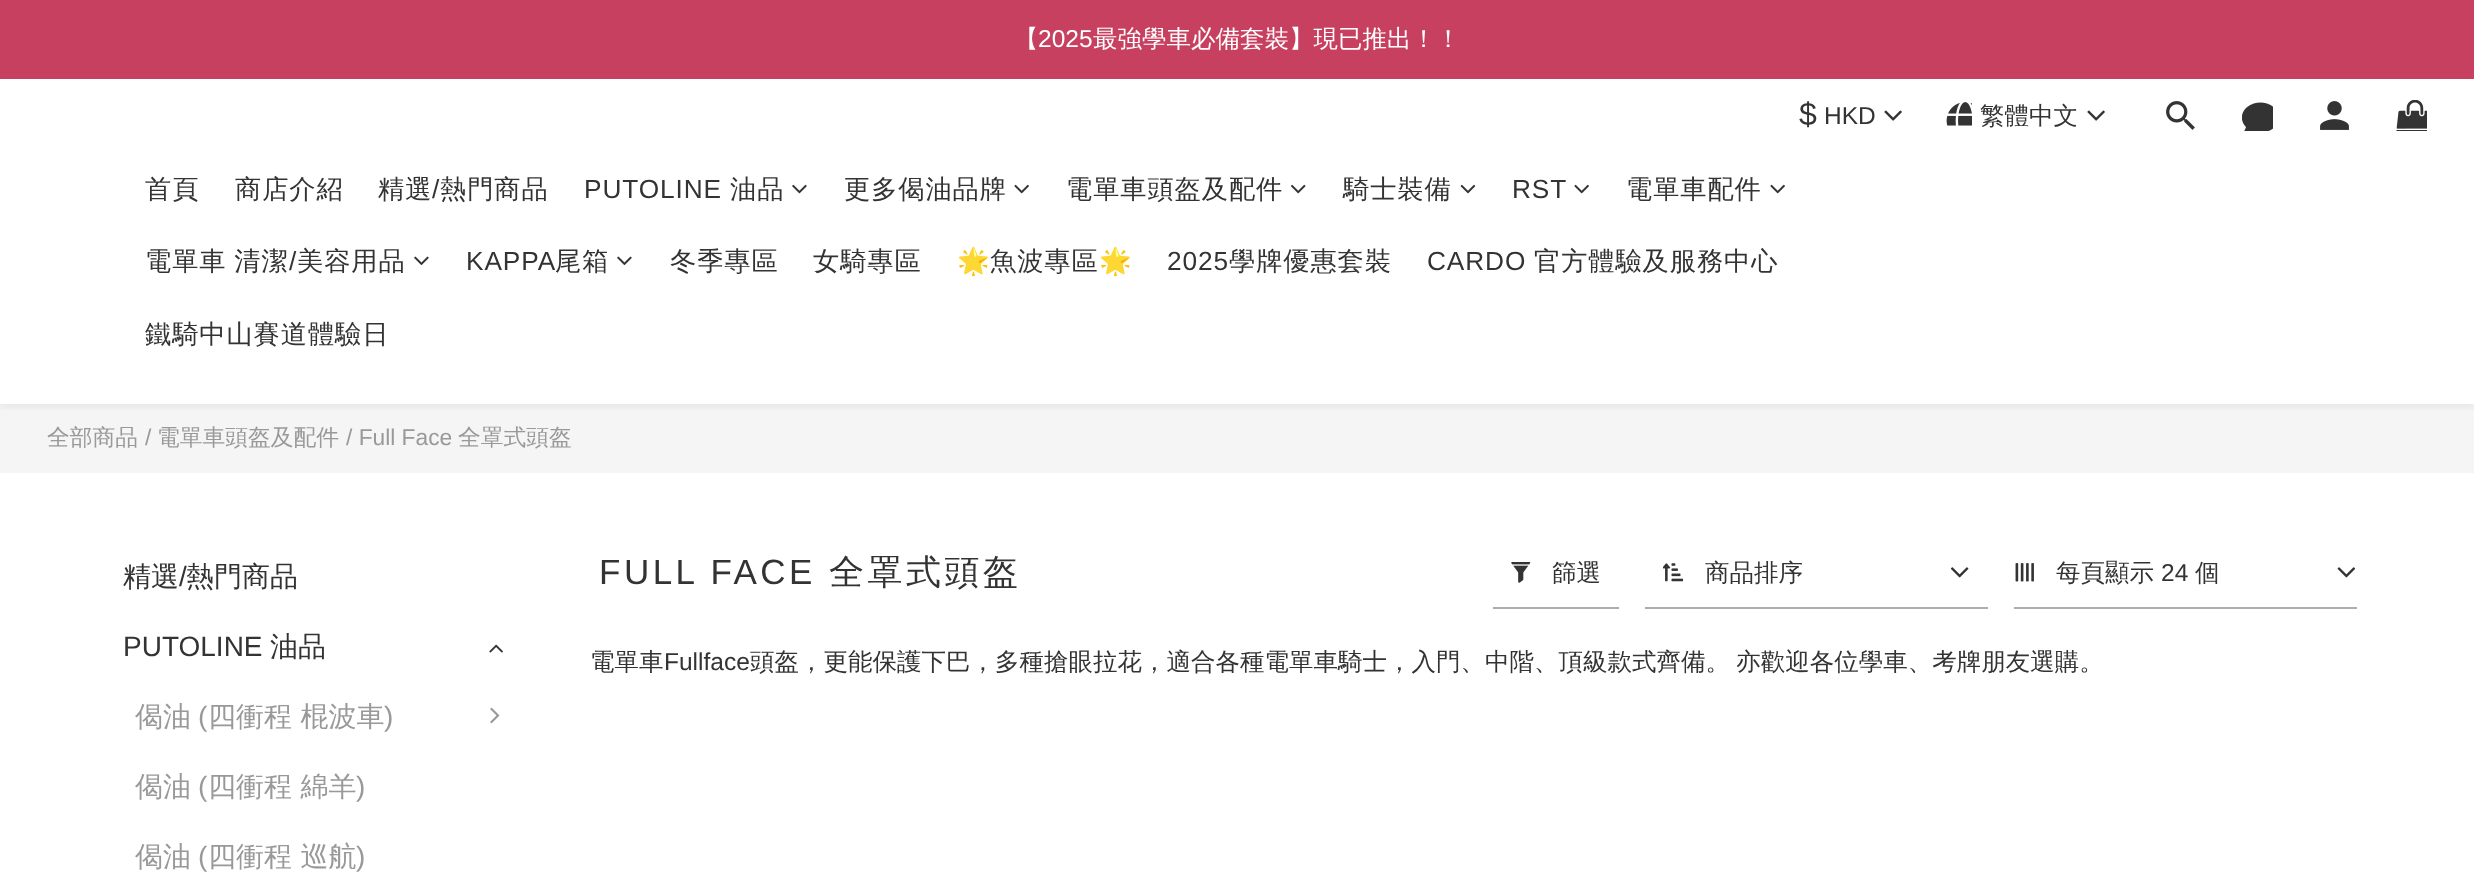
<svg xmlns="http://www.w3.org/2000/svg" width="2474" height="883">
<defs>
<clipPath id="clip1"><rect x="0" y="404" width="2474" height="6"/></clipPath>
</defs>
<rect width="100%" height="100%" fill="#fff"/>
<rect width="2474" height="79" fill="#c74060"/>
<text x="1014" y="47" style="font-family:WenQuanYi Zen Hei;font-size:24.5px;font-weight:500;fill:#fff">【</text>
<text x="1038" y="47" style="font-family:Liberation Sans;font-size:24.5px;fill:#fff">2025</text>
<text x="1093" y="47" style="font-family:WenQuanYi Zen Hei;font-size:24.5px;font-weight:500;fill:#fff">最強學車必備套裝】現已推出！！</text>
<rect y="404" width="2474" height="69" fill="#f5f5f5"/>
<g clip-path="url(#clip1)">
<rect y="82" width="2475" height="326" fill="#0000000f" filter="blur(5px)"/>
</g>
<text x="1799" y="125" style="font-family:Liberation Sans;font-size:32px;letter-spacing:2px;fill:#333">$</text>
<text x="1824" y="124" style="font-family:Liberation Sans;font-size:24.5px;fill:#333">HKD</text>
<image x="1884" y="110" width="18" height="11" href="media/1.png"/>
<image x="1946" y="102" width="26" height="24" href="media/2.png"/>
<text x="1980" y="124" style="font-family:WenQuanYi Zen Hei;font-size:24.5px;font-weight:500;fill:#333">繁體中文</text>
<image x="2087" y="110" width="18" height="11" href="media/3.png"/>
<image x="2166" y="101" width="29" height="29" href="media/4.png"/>
<image x="2242" y="102" width="31" height="29" href="media/5.png"/>
<image x="2320" y="101" width="29" height="29" href="media/6.png"/>
<image x="2396" y="100" width="31" height="31" href="media/7.png"/>
<text x="145" y="198" style="font-family:WenQuanYi Zen Hei;font-size:26.25px;font-weight:500;letter-spacing:0.9px;fill:#333">首頁</text>
<text x="235" y="198" style="font-family:WenQuanYi Zen Hei;font-size:26.25px;font-weight:500;letter-spacing:0.9px;fill:#333">商店介紹</text>
<text x="378" y="198" style="font-family:WenQuanYi Zen Hei;font-size:26.25px;font-weight:500;letter-spacing:0.9px;fill:#333">精選</text>
<text x="432" y="198" style="font-family:Liberation Sans;font-size:26.25px;letter-spacing:0.9px;fill:#333">/</text>
<text x="440" y="198" style="font-family:WenQuanYi Zen Hei;font-size:26.25px;font-weight:500;letter-spacing:0.9px;fill:#333">熱門商品</text>
<text x="584" y="198" style="font-family:Liberation Sans;font-size:26.25px;letter-spacing:0.9px;fill:#333">PUTOLINE</text>
<text x="730" y="198" style="font-family:WenQuanYi Zen Hei;font-size:26.25px;font-weight:500;letter-spacing:0.9px;fill:#333">油品</text>
<image x="792" y="184" width="15" height="10" href="media/8.png"/>
<text x="844" y="198" style="font-family:WenQuanYi Zen Hei;font-size:26.25px;font-weight:500;letter-spacing:0.9px;fill:#333">更多偈油品牌</text>
<image x="1014" y="184" width="15" height="10" href="media/9.png"/>
<text x="1066" y="198" style="font-family:WenQuanYi Zen Hei;font-size:26.25px;font-weight:500;letter-spacing:0.9px;fill:#333">電單車頭盔及配件</text>
<image x="1291" y="184" width="15" height="10" href="media/10.png"/>
<text x="1343" y="198" style="font-family:WenQuanYi Zen Hei;font-size:26.25px;font-weight:500;letter-spacing:0.9px;fill:#333">騎士裝備</text>
<image x="1460" y="184" width="16" height="10" href="media/11.png"/>
<text x="1512" y="198" style="font-family:Liberation Sans;font-size:26.25px;letter-spacing:0.9px;fill:#333">RST</text>
<image x="1574" y="184" width="15" height="10" href="media/9.png"/>
<text x="1626" y="198" style="font-family:WenQuanYi Zen Hei;font-size:26.25px;font-weight:500;letter-spacing:0.9px;fill:#333">電單車配件</text>
<image x="1770" y="184" width="15" height="10" href="media/9.png"/>
<text x="145" y="270" word-spacing="-1" style="font-family:WenQuanYi Zen Hei;font-size:26.25px;font-weight:500;letter-spacing:0.9px;fill:#333">電單車 清潔</text>
<text x="289" y="270" style="font-family:Liberation Sans;font-size:26.25px;letter-spacing:0.9px;fill:#333">/</text>
<text x="297" y="270" style="font-family:WenQuanYi Zen Hei;font-size:26.25px;font-weight:500;letter-spacing:0.9px;fill:#333">美容用品</text>
<image x="414" y="256" width="15" height="9" href="media/12.png"/>
<text x="466" y="270" style="font-family:Liberation Sans;font-size:26.25px;letter-spacing:0.9px;fill:#333">KAPPA</text>
<text x="555" y="270" style="font-family:WenQuanYi Zen Hei;font-size:26.25px;font-weight:500;letter-spacing:0.9px;fill:#333">尾箱</text>
<image x="617" y="256" width="15" height="9" href="media/12.png"/>
<text x="670" y="270" style="font-family:WenQuanYi Zen Hei;font-size:26.25px;font-weight:500;letter-spacing:0.9px;fill:#333">冬季專區</text>
<text x="813" y="270" style="font-family:WenQuanYi Zen Hei;font-size:26.25px;font-weight:500;letter-spacing:0.9px;fill:#333">女騎專區</text>
<text x="957" y="270" style="font-family:Noto Color Emoji;font-size:26.25px;letter-spacing:0.9px;fill:#333">🌟</text>
<text x="990" y="270" style="font-family:WenQuanYi Zen Hei;font-size:26.25px;font-weight:500;letter-spacing:0.9px;fill:#333">魚波專區</text>
<text x="1099" y="270" style="font-family:Noto Color Emoji;font-size:26.25px;letter-spacing:0.9px;fill:#333">🌟</text>
<text x="1167" y="270" style="font-family:Liberation Sans;font-size:26.25px;letter-spacing:0.9px;fill:#333">2025</text>
<text x="1229" y="270" style="font-family:WenQuanYi Zen Hei;font-size:26.25px;font-weight:500;letter-spacing:0.9px;fill:#333">學牌優惠套裝</text>
<text x="1427" y="270" style="font-family:Liberation Sans;font-size:26.25px;letter-spacing:0.9px;fill:#333">CARDO</text>
<text x="1534" y="270" style="font-family:WenQuanYi Zen Hei;font-size:26.25px;font-weight:500;letter-spacing:0.9px;fill:#333">官方體驗及服務中心</text>
<text x="145" y="343" style="font-family:WenQuanYi Zen Hei;font-size:26.25px;font-weight:500;letter-spacing:0.9px;fill:#333">鐵騎中山賽道體驗日</text>
<text x="47" y="445" style="font-family:WenQuanYi Zen Hei;font-size:22.75px;font-weight:500;fill:#999">全部商品</text>
<text x="145" y="445" style="font-family:Liberation Sans;font-size:22.75px;fill:#999">/</text>
<text x="157" y="445" style="font-family:WenQuanYi Zen Hei;font-size:22.75px;font-weight:500;fill:#999">電單車頭盔及配件</text>
<text x="346" y="445" style="font-family:Liberation Sans;font-size:22.75px;fill:#999">/ Full Face</text>
<text x="458" y="445" style="font-family:WenQuanYi Zen Hei;font-size:22.75px;font-weight:500;fill:#999">全罩式頭盔</text>
<text x="123" y="586" style="font-family:WenQuanYi Zen Hei;font-size:28px;font-weight:500;fill:#333">精選</text>
<text x="179" y="586" style="font-family:Liberation Sans;font-size:28px;fill:#333">/</text>
<text x="186" y="586" style="font-family:WenQuanYi Zen Hei;font-size:28px;font-weight:500;fill:#333">熱門商品</text>
<text x="123" y="656" style="font-family:Liberation Sans;font-size:28px;fill:#333">PUTOLINE</text>
<text x="270" y="656" style="font-family:WenQuanYi Zen Hei;font-size:28px;font-weight:500;fill:#333">油品</text>
<image x="489" y="644" width="14" height="9" href="media/13.png"/>
<text x="135" y="726" style="font-family:WenQuanYi Zen Hei;font-size:28px;font-weight:500;fill:#999">偈油</text>
<text x="198" y="726" style="font-family:Liberation Sans;font-size:28px;fill:#999">(</text>
<text x="208" y="726" style="font-family:WenQuanYi Zen Hei;font-size:28px;font-weight:500;fill:#999">四衝程 棍波車</text>
<text x="384" y="726" style="font-family:Liberation Sans;font-size:28px;fill:#999">)</text>
<image x="490" y="707" width="10" height="17" href="media/14.png"/>
<text x="135" y="796" style="font-family:WenQuanYi Zen Hei;font-size:28px;font-weight:500;fill:#999">偈油</text>
<text x="198" y="796" style="font-family:Liberation Sans;font-size:28px;fill:#999">(</text>
<text x="208" y="796" style="font-family:WenQuanYi Zen Hei;font-size:28px;font-weight:500;fill:#999">四衝程 綿羊</text>
<text x="356" y="796" style="font-family:Liberation Sans;font-size:28px;fill:#999">)</text>
<text x="135" y="866" style="font-family:WenQuanYi Zen Hei;font-size:28px;font-weight:500;fill:#999">偈油</text>
<text x="198" y="866" style="font-family:Liberation Sans;font-size:28px;fill:#999">(</text>
<text x="208" y="866" style="font-family:WenQuanYi Zen Hei;font-size:28px;font-weight:500;fill:#999">四衝程 巡航</text>
<text x="356" y="866" style="font-family:Liberation Sans;font-size:28px;fill:#999">)</text>
<text x="599" y="584" style="font-family:Liberation Sans;font-size:35px;letter-spacing:3.5px;fill:#333">FULL FACE</text>
<text x="829" y="584" style="font-family:WenQuanYi Zen Hei;font-size:35px;font-weight:500;letter-spacing:3.5px;fill:#333">全罩式頭盔</text>
<rect x="1493" y="607" width="126" height="2" fill="#adadad"/>
<image x="1511" y="562" width="20" height="21" href="media/15.png"/>
<text x="1552" y="581" style="font-family:WenQuanYi Zen Hei;font-size:24.5px;font-weight:500;fill:#333">篩選</text>
<rect x="1645" y="607" width="343" height="2" fill="#adadad"/>
<image x="1663" y="563" width="21" height="19" href="media/16.png"/>
<text x="1705" y="581" style="font-family:WenQuanYi Zen Hei;font-size:24.5px;font-weight:500;fill:#333">商品排序</text>
<image x="1950" y="567" width="19" height="11" href="media/17.png"/>
<rect x="2014" y="607" width="343" height="2" fill="#adadad"/>
<image x="2015" y="563" width="19" height="19" href="media/18.png"/>
<text x="2056" y="581" style="font-family:WenQuanYi Zen Hei;font-size:24.5px;font-weight:500;fill:#333">每頁顯示</text>
<text x="2161" y="581" style="font-family:Liberation Sans;font-size:24.5px;fill:#333">24</text>
<text x="2195" y="581" style="font-family:WenQuanYi Zen Hei;font-size:24.5px;font-weight:500;fill:#333">個</text>
<image x="2337" y="567" width="19" height="11" href="media/19.png"/>
<text x="590" y="670" style="font-family:WenQuanYi Zen Hei;font-size:24.5px;font-weight:500;fill:#333">電單車</text>
<text x="664" y="670" style="font-family:Liberation Sans;font-size:24.5px;fill:#333">Fullface</text>
<text x="750" y="670" word-spacing="-1" style="font-family:WenQuanYi Zen Hei;font-size:24.5px;font-weight:500;fill:#333">頭盔，更能保護下巴，多種搶眼拉花，適合各種電單車騎士，入門、中階、頂級款式齊備。 亦歡迎各位學車、考牌朋友選購。</text>
</svg>
